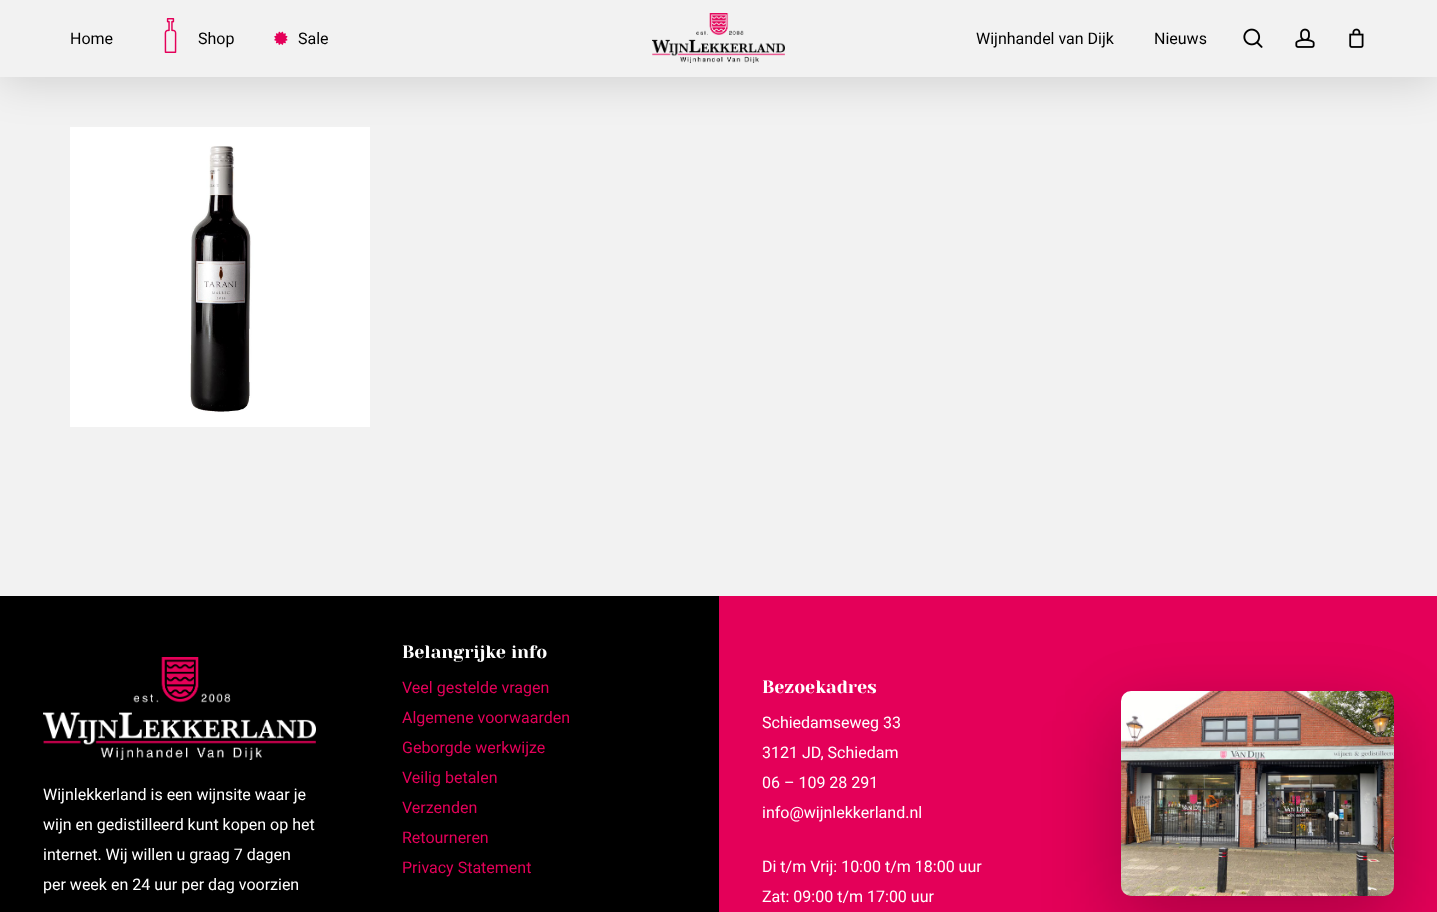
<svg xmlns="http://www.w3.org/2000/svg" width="1437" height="912">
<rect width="100%" height="100%" fill="#f2f2f2"/>
<image x="70" y="127" width="300" height="300" href="media/7.png"/>
<rect y="3" width="1437" height="77" fill="#00000026" filter="blur(22.5px)"/>
<rect width="1437" height="77" fill="#f2f2f2"/>
<text x="70" y="44" style="font-family:Roboto;font-size:16px;fill:#000">Home</text>
<image x="164" y="18" width="13" height="35" href="media/1.png"/>
<text x="198" y="44" style="font-family:Roboto;font-size:16px;fill:#000">Shop</text>
<image x="274" y="31" width="14" height="14" href="media/2.png"/>
<text x="298" y="44" style="font-family:Roboto;font-size:16px;fill:#000">Sale</text>
<image x="652" y="13" width="133" height="50" href="media/3.png"/>
<text x="976" y="44" style="font-family:Roboto;font-size:16px;fill:#000">Wijnhandel van Dijk</text>
<text x="1154" y="44" style="font-family:Roboto;font-size:16px;fill:#000">Nieuws</text>
<image x="1243" y="28" width="20" height="20" href="media/4.png"/>
<image x="1295" y="28" width="20" height="20" href="media/5.png"/>
<image x="1349" y="28" width="15" height="20" href="media/6.png"/>
<rect y="596" width="719" height="316" fill="#000"/>
<image x="43" y="657" width="273" height="103" href="media/8.png"/>
<text x="43" y="800" style="font-family:Roboto;font-size:16px;fill:#fff">Wijnlekkerland is een wijnsite waar je</text>
<text x="43" y="830" style="font-family:Roboto;font-size:16px;fill:#fff">wijn en gedistilleerd kunt kopen op het</text>
<text x="43" y="860" style="font-family:Roboto;font-size:16px;fill:#fff">internet. Wij willen u graag 7 dagen</text>
<text x="43" y="890" style="font-family:Roboto;font-size:16px;fill:#fff">per week en 24 uur per dag voorzien</text>
<text x="402" y="658" style="font-family:Yeseva One;font-size:18px;fill:#fff">Belangrijke info</text>
<text x="402" y="693" style="font-family:Roboto;font-size:16px;fill:#e40059">Veel gestelde vragen</text>
<text x="402" y="723" style="font-family:Roboto;font-size:16px;fill:#e40059">Algemene voorwaarden</text>
<text x="402" y="753" style="font-family:Roboto;font-size:16px;fill:#e40059">Geborgde werkwijze</text>
<text x="402" y="783" style="font-family:Roboto;font-size:16px;fill:#e40059">Veilig betalen</text>
<text x="402" y="813" style="font-family:Roboto;font-size:16px;fill:#e40059">Verzenden</text>
<text x="402" y="843" style="font-family:Roboto;font-size:16px;fill:#e40059">Retourneren</text>
<text x="402" y="873" style="font-family:Roboto;font-size:16px;fill:#e40059">Privacy Statement</text>
<rect x="719" y="596" width="718" height="316" fill="#e40059"/>
<text x="762" y="693" style="font-family:Yeseva One;font-size:18px;fill:#fff">Bezoekadres</text>
<text x="762" y="728" style="font-family:Roboto;font-size:16px;fill:#fff">Schiedamseweg 33</text>
<text x="762" y="758" style="font-family:Roboto;font-size:16px;fill:#fff">3121 JD, Schiedam</text>
<text x="762" y="788" style="font-family:Roboto;font-size:16px;fill:#fff">06 – 109 28 291</text>
<text x="762" y="818" style="font-family:Roboto;font-size:16px;fill:#fff">info@wijnlekkerland.nl</text>
<text x="762" y="872" style="font-family:Roboto;font-size:16px;fill:#fff">Di t/m Vrij: 10:00 t/m 18:00 uur</text>
<text x="762" y="902" style="font-family:Roboto;font-size:16px;fill:#fff">Zat: 09:00 t/m 17:00 uur</text>
<rect x="1121" y="711" width="273" height="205" rx="10" fill="#0000001f" filter="blur(35px)"/>
<rect x="1121" y="721" width="273" height="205" rx="10" fill="#00000024" filter="blur(40px)"/>
<image x="1121" y="691" width="273" height="205" href="media/9.png"/>
</svg>
